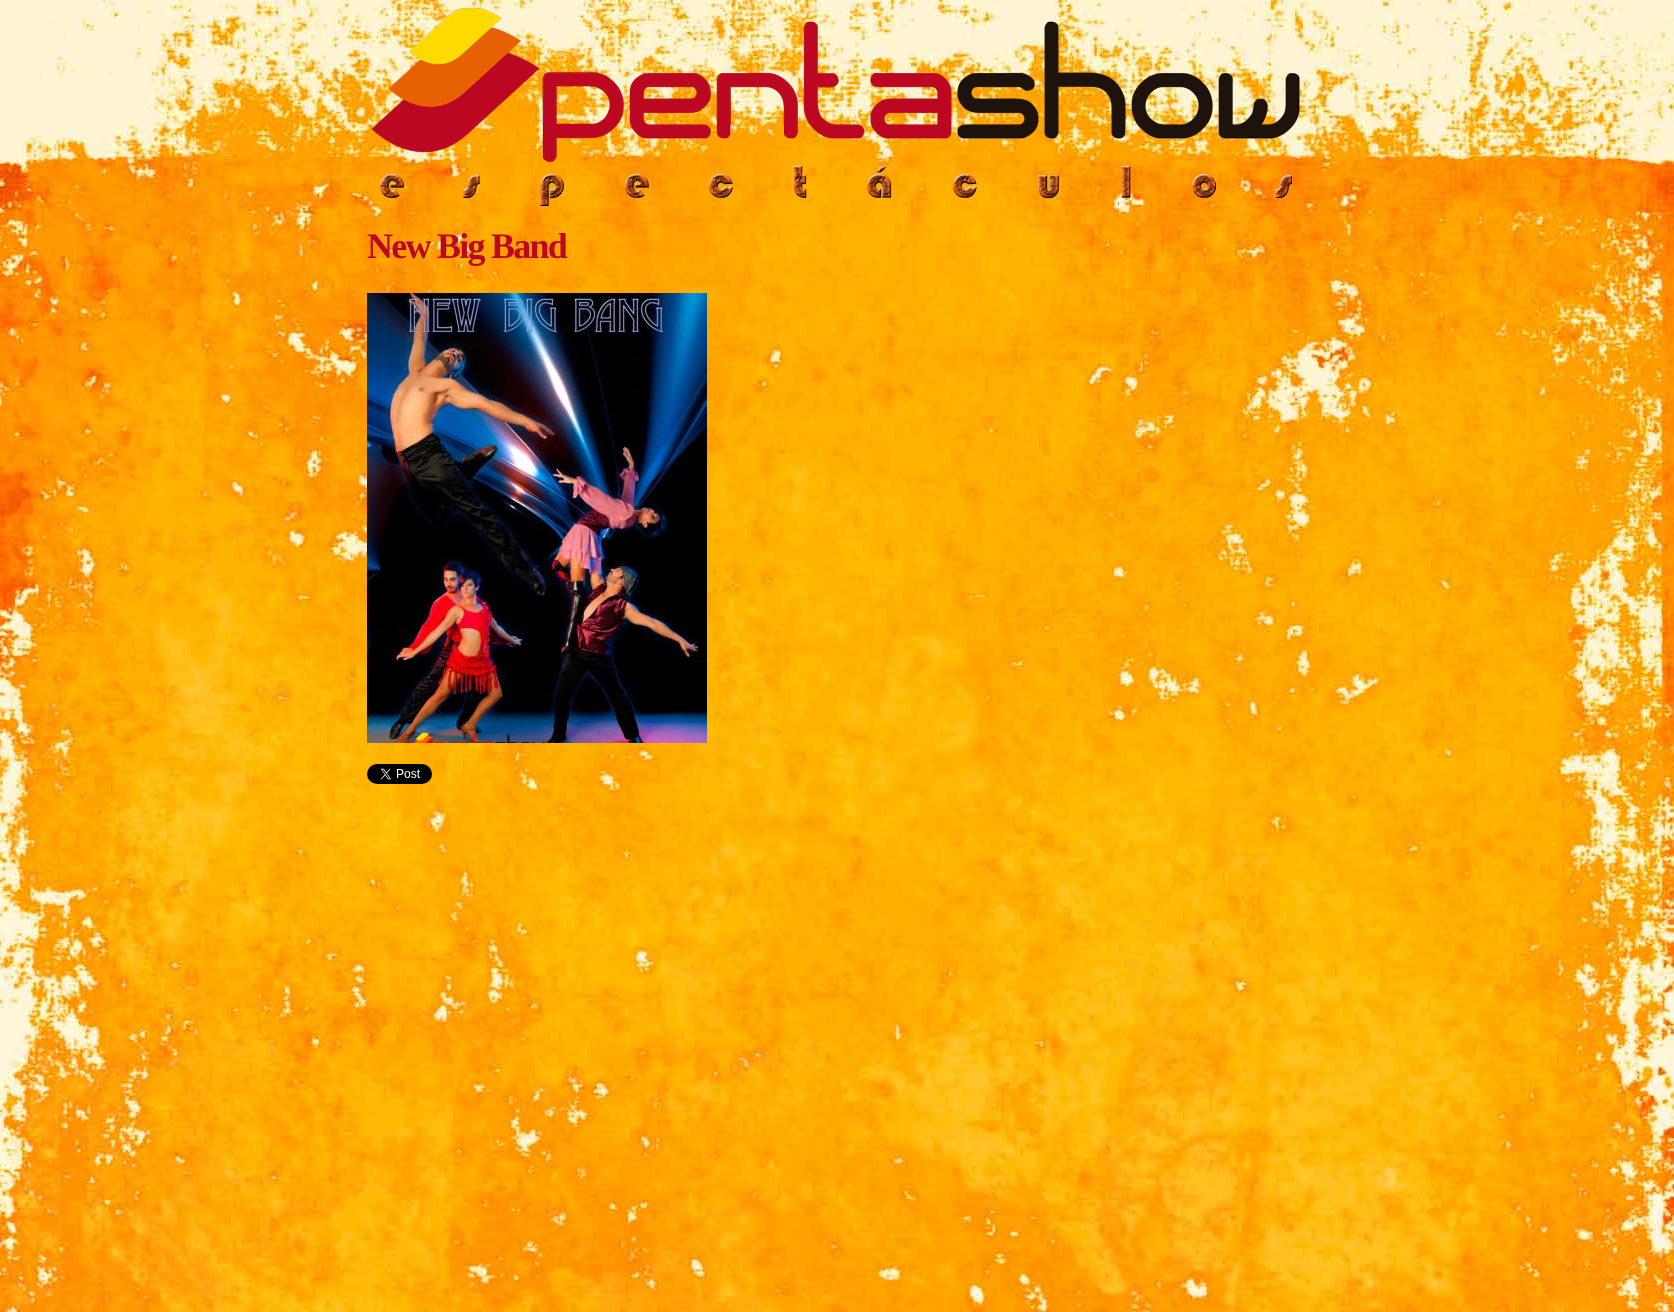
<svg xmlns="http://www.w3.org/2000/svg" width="1674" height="1312">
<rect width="100%" height="100%" fill="#fff"/>
<image x="0" y="0" width="1674" height="1312" href="media/1.png"/>
<image x="371" y="7" width="929" height="200" href="media/2.png"/>
<text x="367" y="258" style="font-family:Liberation Serif;font-size:36px;font-weight:bold;letter-spacing:-1.75px;fill:#bc0723">New Big Band</text>
<image x="367" y="293" width="340" height="450" href="media/3.png"/>
<image x="367" y="764" width="65" height="20" href="media/4.png"/>
</svg>
